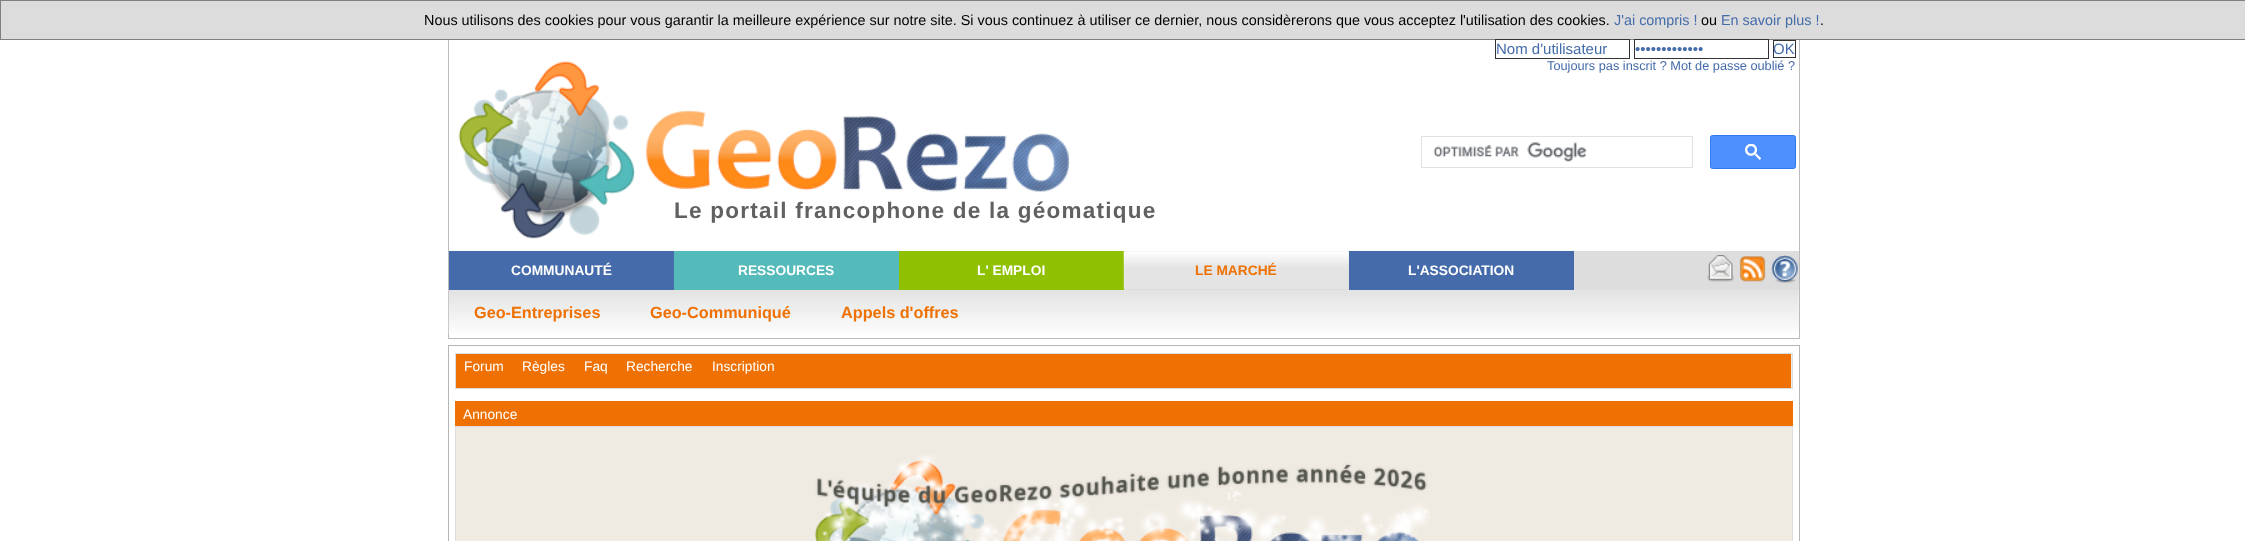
<svg xmlns="http://www.w3.org/2000/svg" width="2245" height="541">
<rect width="100%" height="100%" fill="#fff"/>
<rect x="0.5" y="0.5" width="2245" height="39" fill="#dcdcdc" stroke="#808080"/>
<text x="424" y="25" style="font-family:Liberation Sans;font-size:14.4px;fill:#000">Nous utilisons des cookies pour vous garantir la meilleure expérience sur notre site. Si vous continuez à utiliser ce dernier, nous considèrerons que vous acceptez l'utilisation des cookies.</text>
<text x="1614" y="25" style="font-family:Liberation Sans;font-size:14.4px;fill:#446baa">J'ai compris !</text>
<text x="1701" y="25" style="font-family:Liberation Sans;font-size:14.4px;fill:#000">ou</text>
<text x="1721" y="25" style="font-family:Liberation Sans;font-size:14.4px;fill:#446baa">En savoir plus !</text>
<text x="1820" y="25" style="font-family:Liberation Sans;font-size:14.4px;fill:#000">.</text>
<rect x="1799" y="40" width="1" height="299" fill="#bbb"/>
<rect x="448" y="338" width="1352" height="1" fill="#bbb"/>
<rect x="448" y="40" width="1" height="299" fill="#bbb"/>
<rect x="1495.5" y="39.5" width="134" height="19" fill="none" stroke="#333"/>
<text x="1496" y="54" style="font-family:Liberation Sans;font-size:15px;fill:#446baa">Nom d'utilisateur</text>
<rect x="1634.5" y="39.5" width="134" height="19" fill="none" stroke="#333"/>
<text x="1635" y="54" style="font-family:Liberation Sans;font-size:15px;fill:#446baa">•••••••••••••</text>
<rect x="1773.5" y="40.5" width="22" height="17" fill="none" stroke="#333"/>
<text x="1773" y="54" style="font-family:Liberation Sans;font-size:15px;fill:#446baa">OK</text>
<text x="1547" y="70" style="font-family:Liberation Sans;font-size:12.75px;fill:#446baa">Toujours pas inscrit ? Mot de passe oublié ?</text>
<rect x="1421.5" y="136.5" width="271" height="31" fill="none" stroke="#dfe1e5"/>
<image x="1433" y="142" width="154" height="20" href="media/1.png"/>
<rect x="1710.5" y="135.5" width="85" height="33" rx="2" fill="#4d90fe" stroke="#3079ed"/>
<image x="1745" y="144" width="16" height="16" href="media/2.png"/>
<image x="458" y="61" width="612" height="178" href="media/3.png"/>
<text x="674" y="218" style="font-family:Liberation Sans;font-size:22.5px;font-weight:bold;letter-spacing:1.25px;fill:#616161">Le portail francophone de la géomatique</text>
<rect x="1124" y="251" width="675" height="39" fill="#ddd"/>
<rect x="449" y="251" width="225" height="39" fill="#456baa"/>
<text x="511" y="275" style="font-family:Liberation Sans;font-size:13.75px;font-weight:bold;fill:#fff">COMMUNAUTÉ</text>
<rect x="674" y="251" width="225" height="39" fill="#54baba"/>
<text x="738" y="275" style="font-family:Liberation Sans;font-size:13.75px;font-weight:bold;fill:#fff">RESSOURCES</text>
<rect x="899" y="251" width="225" height="39" fill="#8fc002"/>
<text x="977" y="275" style="font-family:Liberation Sans;font-size:13.75px;font-weight:bold;fill:#fff">L' EMPLOI</text>
<image x="1123" y="251" width="226" height="38" href="media/4.png"/>
<text x="1195" y="275" style="font-family:Liberation Sans;font-size:13.75px;font-weight:bold;fill:#ef7103">LE MARCHÉ</text>
<rect x="1349" y="251" width="225" height="39" fill="#456baa"/>
<text x="1408" y="275" style="font-family:Liberation Sans;font-size:13.75px;font-weight:bold;fill:#fff">L'ASSOCIATION</text>
<image x="1707" y="255" width="27" height="27" href="media/5.png"/>
<image x="1739" y="256" width="27" height="26" href="media/6.png"/>
<image x="1771" y="255" width="27" height="28" href="media/7.png"/>
<image x="448" y="290" width="1351" height="44" href="media/8.png"/>
<text x="474" y="318" style="font-family:Liberation Sans;font-size:16.25px;font-weight:bold;fill:#ef7103">Geo-Entreprises</text>
<text x="650" y="318" style="font-family:Liberation Sans;font-size:16.25px;font-weight:bold;fill:#ef7103">Geo-Communiqué</text>
<text x="841" y="318" style="font-family:Liberation Sans;font-size:16.25px;font-weight:bold;fill:#ef7103">Appels d'offres</text>
<rect x="448.5" y="345.5" width="1351" height="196" fill="none" stroke="#b7b6b6"/>
<rect x="1791" y="354" width="1" height="34" fill="#f0ebe2"/>
<rect x="455.5" y="353.5" width="1337" height="35" fill="none" stroke="#ddd"/>
<rect x="456" y="354" width="1335" height="34" fill="#ef7103"/>
<text x="464" y="371" style="font-family:Liberation Sans;font-size:13.75px;fill:#fff">Forum</text>
<text x="522" y="371" style="font-family:Liberation Sans;font-size:13.75px;fill:#fff">Règles</text>
<text x="584" y="371" style="font-family:Liberation Sans;font-size:13.75px;fill:#fff">Faq</text>
<text x="626" y="371" style="font-family:Liberation Sans;font-size:13.75px;fill:#fff">Recherche</text>
<text x="712" y="371" style="font-family:Liberation Sans;font-size:13.75px;fill:#fff">Inscription</text>
<rect x="455" y="401" width="1338" height="25" fill="#ef7103"/>
<text x="463" y="419" style="font-family:Liberation Sans;font-size:13.75px;fill:#fff">Annonce</text>
<rect x="455.5" y="426.5" width="1337" height="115" fill="#f0ebe2" stroke="#ddd"/>
<image x="814" y="454" width="617" height="87" href="media/9.png"/>
</svg>
